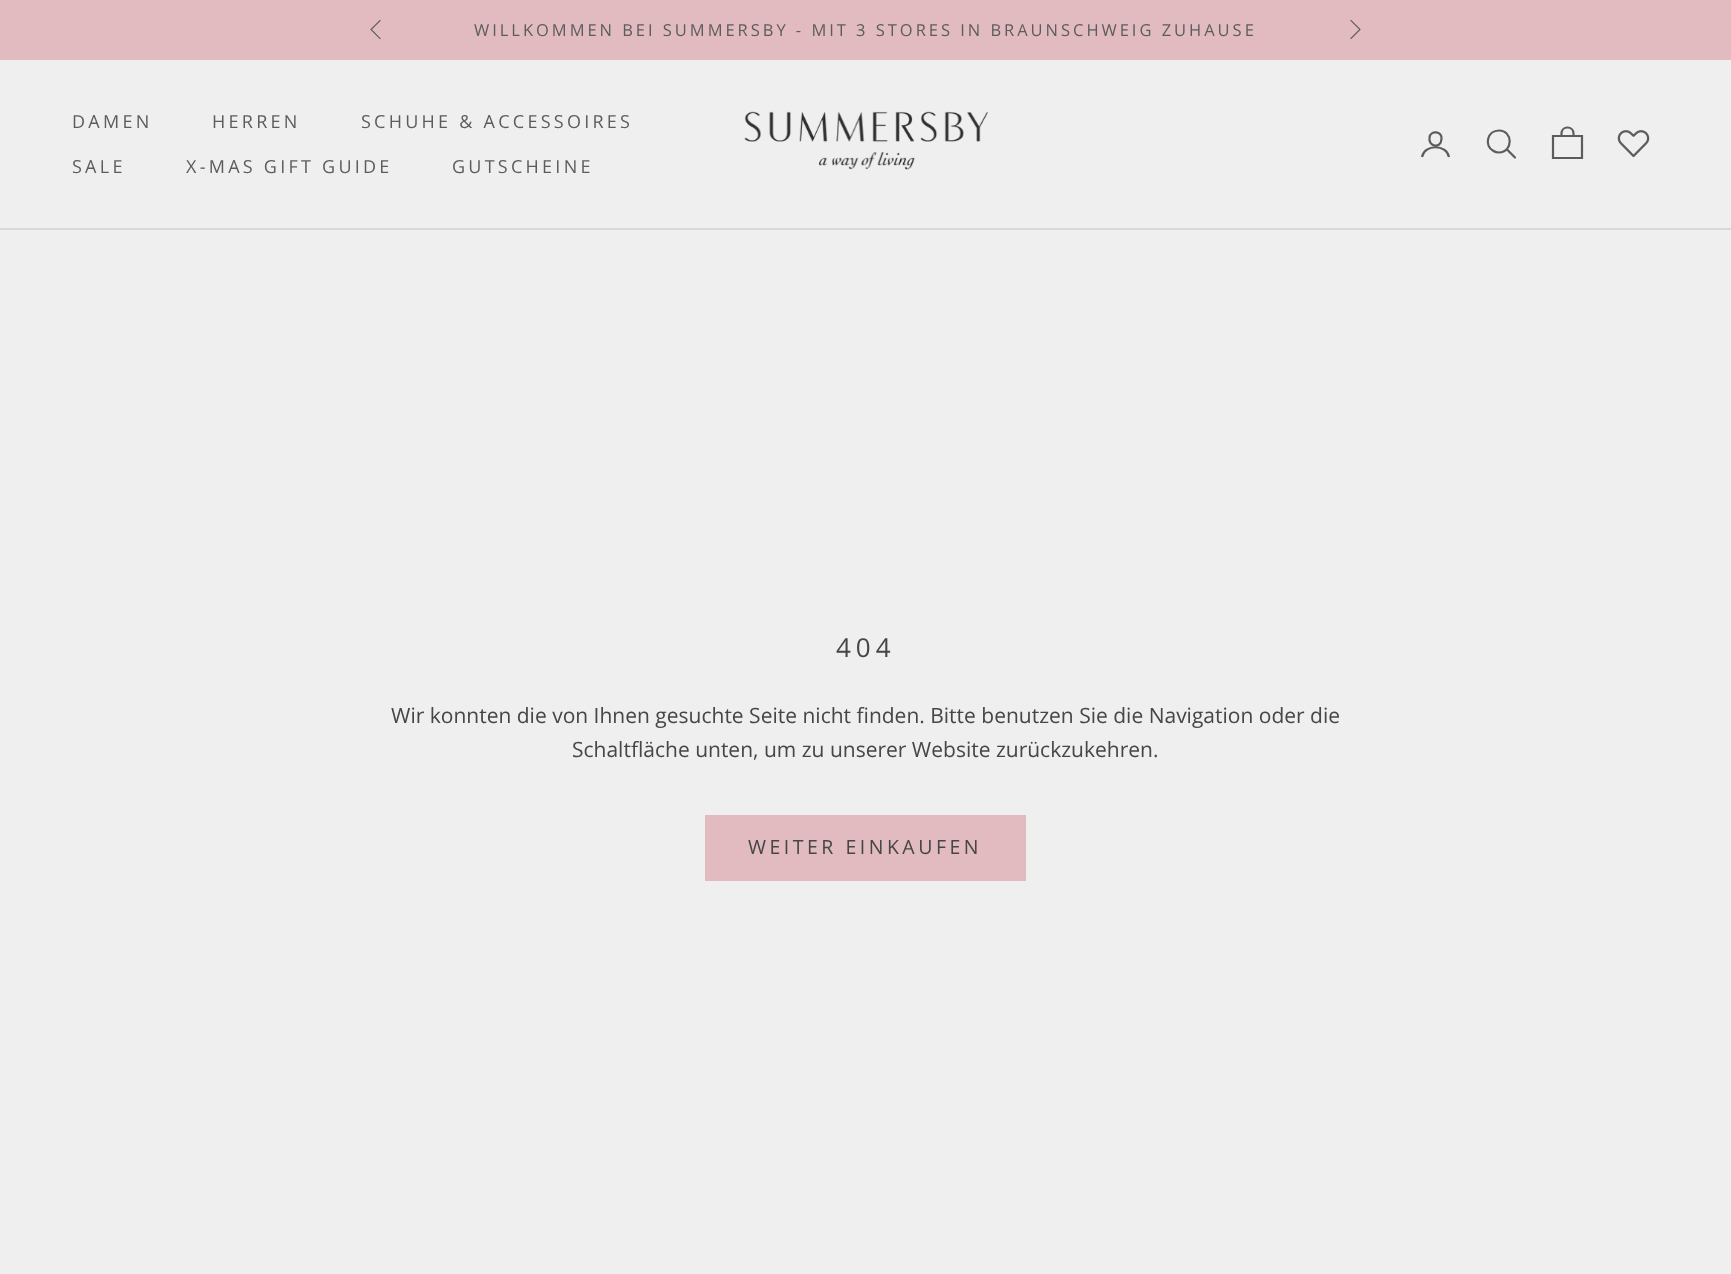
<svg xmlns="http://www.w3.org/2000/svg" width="1731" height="1274">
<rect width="100%" height="100%" fill="#efefef"/>
<rect width="1731" height="60" fill="#e1bbbf"/>
<path d="M380 20.5l-9 9l9 9" fill="none" stroke="#5c5c5c" stroke-width="1.1" stroke-linecap="square"/>
<text x="474" y="36" style="font-family:Open Sans;font-size:16.5px;letter-spacing:2.97px;fill:#5c5c5c">WILLKOMMEN BEI SUMMERSBY - MIT 3 STORES IN BRAUNSCHWEIG ZUHAUSE</text>
<path d="M1351 38.5l9-9l-9-9" fill="none" stroke="#5c5c5c" stroke-width="1.1" stroke-linecap="square"/>
<rect y="228" width="1731" height="2" fill="#d9d9d9"/>
<text x="72" y="128" style="font-family:Open Sans;font-size:18px;letter-spacing:3.25px;fill:#5c5c5c">DAMEN</text>
<text x="212" y="128" style="font-family:Open Sans;font-size:18px;letter-spacing:3.25px;fill:#5c5c5c">HERREN</text>
<text x="361" y="128" style="font-family:Open Sans;font-size:18px;letter-spacing:3.25px;fill:#5c5c5c">SCHUHE &amp; ACCESSOIRES</text>
<text x="72" y="173" style="font-family:Open Sans;font-size:18px;letter-spacing:3.25px;fill:#5c5c5c">SALE</text>
<text x="186" y="173" style="font-family:Open Sans;font-size:18px;letter-spacing:3.25px;fill:#5c5c5c">X-MAS GIFT GUIDE</text>
<text x="452" y="173" style="font-family:Open Sans;font-size:18px;letter-spacing:3.25px;fill:#5c5c5c">GUTSCHEINE</text>
<image x="744" y="111" width="244" height="59" href="media/1.png"/>
<path d="M1441.5 139c-.5 10-13.5 8-12-1.5c1-7.5 13-6.5 12 1.5z" fill="none" stroke="#5c5c5c" stroke-width="2.2" stroke-linecap="round" stroke-linejoin="round"/>
<path d="M1422 157c2.5-13 24.5-13 27 0" fill="none" stroke="#5c5c5c" stroke-width="2.2"/>
<path d="M1499 130.5c-11.5 0-15.5 15-5.5 20.5c1.5 1 3.5 1.5 5.5 1.5c14.5-.5 14-22 0-22z" fill="none" stroke="#5c5c5c" stroke-width="2.2"/>
<path d="M1507.5 150l7.5 7.5" fill="none" stroke="#5c5c5c" stroke-width="2.2" stroke-linecap="round"/>
<path d="M1582 158v-22h-29v22zm-20.5-23v-1.5c0-3.5 2.5-6 6-6c3.5 0 6 2.5 6 6v1.5" fill="none" stroke="#5c5c5c" stroke-width="2.2"/>
<image x="1617" y="130" width="33" height="28" href="media/2.png"/>
<text x="836" y="657" style="font-family:Open Sans;font-size:26px;letter-spacing:5px;fill:#464646">404</text>
<text x="391" y="723" style="font-family:Open Sans;font-size:21px;fill:#464646">Wir konnten die von Ihnen gesuchte Seite nicht finden. Bitte benutzen Sie die Navigation oder die</text>
<text x="572" y="757" style="font-family:Open Sans;font-size:21px;fill:#464646">Schaltfläche unten, um zu unserer Website zurückzukehren.</text>
<rect x="706" y="816" width="319" height="64" fill="#e1bbbf" stroke="#e1bbbf" stroke-width="2"/>
<text x="748" y="854" style="font-family:Open Sans;font-size:19.5px;letter-spacing:3.5px;fill:#464646">WEITER EINKAUFEN</text>
</svg>
